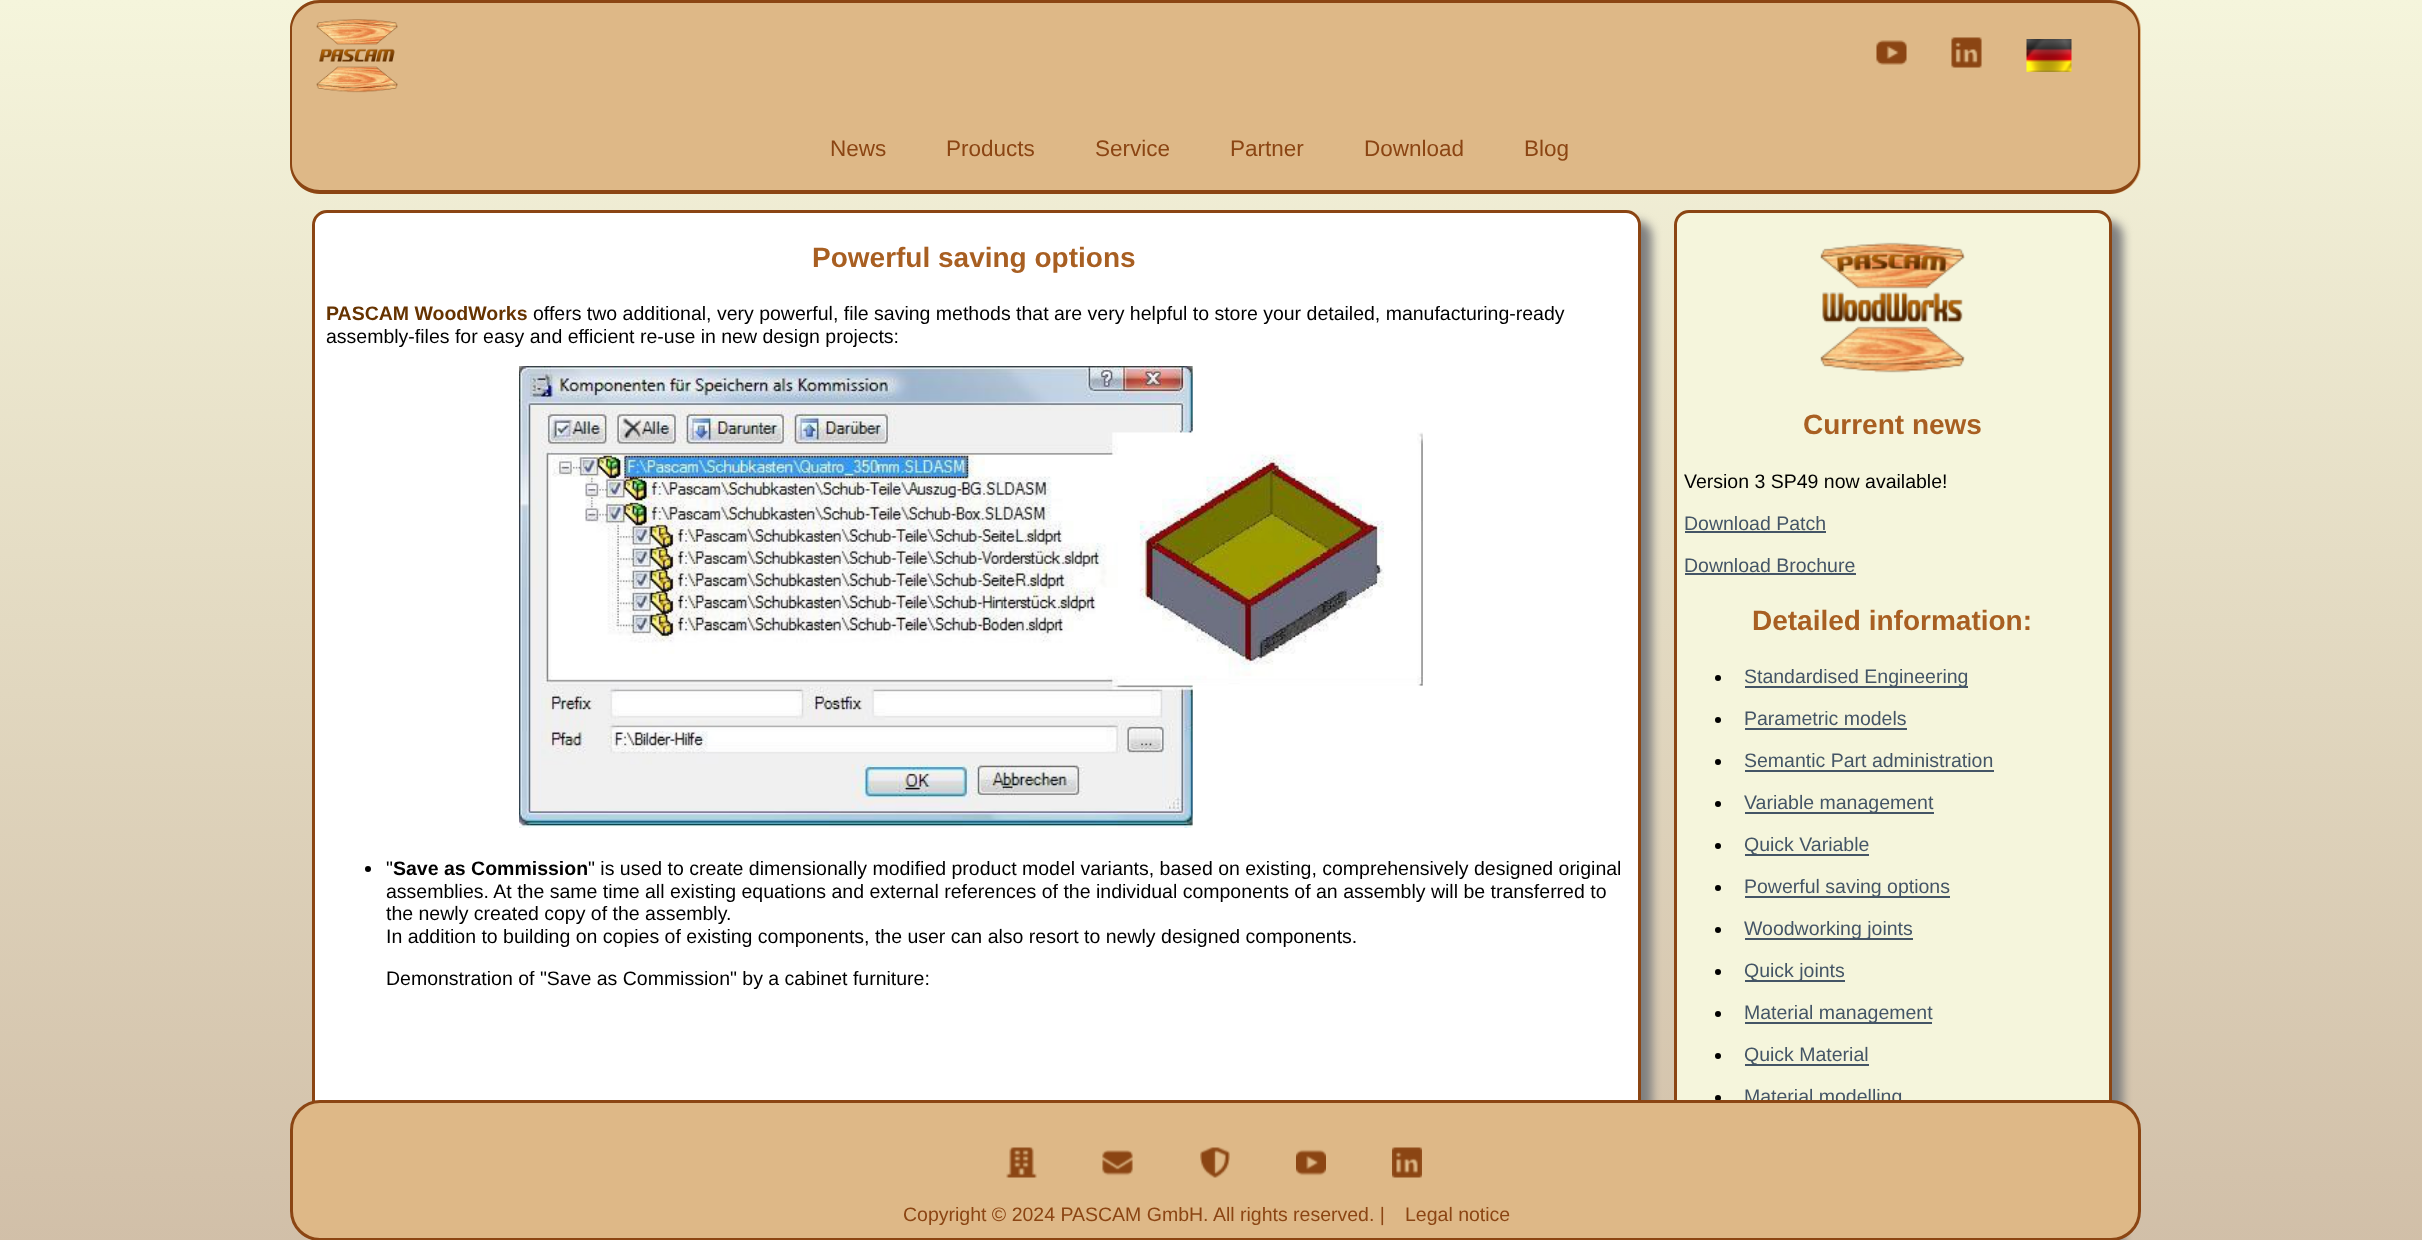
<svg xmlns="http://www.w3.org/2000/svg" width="2422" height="1240">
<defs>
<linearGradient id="g1" gradientUnits="userSpaceOnUse" x1="1211" y1="0" x2="1211" y2="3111"><stop offset="0" stop-color="#f5f5dc"/><stop offset="0.4" stop-color="#d1bfa8"/><stop offset="0.63" stop-color="#d1bfa8"/><stop offset="1" stop-color="#f5f5dc"/></linearGradient>
</defs>
<rect width="100%" height="100%" fill="#fff"/>
<rect width="2422" height="1240" fill="url(#g1)"/>
<path d="M290 105h1851v59c0 16.5-13.5 30-30 30h-1791c-16.5 0-30-13.5-30-30z" fill="#deb887"/>
<path d="M290 105h1850v59c0 16-13 30-30 30h-1790c-17 0-30-14-30-30zm2 0h1846v59c0 14-13 26-28 26h-1790c-15 0-28-12-28-26z" fill="#8b4513" fill-rule="evenodd"/>
<path d="M320 0h1791c16.5 0 30 13.5 30 30v78h-1851v-78c0-16.5 13.5-30 30-30z" fill="#deb887"/>
<path d="M320 0h1790c17 0 30 13 30 30v78h-1850v-78c0-17 13-30 30-30zm0 3h1790c15 0 28 12 28 27v78h-1846v-78c0-15 13-27 28-27z" fill="#8b4513" fill-rule="evenodd"/>
<image x="316" y="19" width="82" height="74" href="media/1.png"/>
<image x="1876" y="40" width="31" height="25" href="media/2.png"/>
<image x="1951" y="37" width="31" height="31" href="media/3.png"/>
<image x="2026" y="39" width="46" height="33" href="media/4.png"/>
<text x="830" y="156" style="font-family:Liberation Sans;font-size:22.5px;fill:#8b4513">News</text>
<text x="946" y="156" style="font-family:Liberation Sans;font-size:22.5px;fill:#8b4513">Products</text>
<text x="1095" y="156" style="font-family:Liberation Sans;font-size:22.5px;fill:#8b4513">Service</text>
<text x="1230" y="156" style="font-family:Liberation Sans;font-size:22.5px;fill:#8b4513">Partner</text>
<text x="1364" y="156" style="font-family:Liberation Sans;font-size:22.5px;fill:#8b4513">Download</text>
<text x="1524" y="156" style="font-family:Liberation Sans;font-size:22.5px;fill:#8b4513">Blog</text>
<rect x="323" y="221" width="1329" height="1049" rx="15" fill="#808080" filter="blur(5px)"/>
<rect x="313.5" y="211.5" width="1326" height="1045" rx="13.5" fill="#fff" stroke="#8b4513" stroke-width="3"/>
<text x="812" y="267" style="font-family:Liberation Sans;font-size:28px;font-weight:bold;fill:#a85f22">Powerful saving options</text>
<text x="326" y="320" style="font-family:Liberation Sans;font-size:19.5px;font-weight:bold;fill:#630">PASCAM WoodWorks</text>
<text x="533" y="320" style="font-family:Liberation Sans;font-size:19.5px;fill:#000">offers two additional, very powerful, file saving methods that are very helpful to store your detailed, manufacturing-ready</text>
<text x="326" y="343" style="font-family:Liberation Sans;font-size:19.5px;fill:#000">assembly-files for easy and efficient re-use in new design projects:</text>
<image x="519" y="366" width="904" height="462" href="media/5.png"/>
<text x="386" y="875" style="font-family:Liberation Sans;font-size:19.5px;fill:#000">"</text>
<text x="393" y="875" style="font-family:Liberation Sans;font-size:19.5px;font-weight:bold;fill:#000">Save as Commission</text>
<text x="588" y="875" style="font-family:Liberation Sans;font-size:19.5px;fill:#000">" is used to create dimensionally modified product model variants, based on existing, comprehensively designed original</text>
<circle cx="368" cy="869" r="3" fill="#000"/>
<text x="386" y="898" style="font-family:Liberation Sans;font-size:19.5px;fill:#000">assemblies. At the same time all existing equations and external references of the individual components of an assembly will be transferred to</text>
<text x="386" y="920" style="font-family:Liberation Sans;font-size:19.5px;fill:#000">the newly created copy of the assembly.</text>
<text x="386" y="943" style="font-family:Liberation Sans;font-size:19.5px;fill:#000">In addition to building on copies of existing components, the user can also resort to newly designed components.</text>
<text x="386" y="985" style="font-family:Liberation Sans;font-size:19.5px;fill:#000">Demonstration of "Save as Commission" by a cabinet furniture:</text>
<rect x="1685" y="221" width="438" height="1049" rx="15" fill="#808080" filter="blur(5px)"/>
<rect x="1675.5" y="211.5" width="435" height="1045" rx="13.5" fill="#f5f5dc" stroke="#8b4513" stroke-width="3"/>
<image x="1820" y="242" width="145" height="131" href="media/6.png"/>
<text x="1803" y="434" style="font-family:Liberation Sans;font-size:28px;font-weight:bold;fill:#a85f22">Current news</text>
<text x="1684" y="488" style="font-family:Liberation Sans;font-size:19.5px;fill:#000">Version 3 SP49 now available!</text>
<text x="1684" y="530" style="font-family:Liberation Sans;font-size:19.5px;fill:#456">Download Patch</text>
<rect x="1685" y="531" width="141" height="2" fill="#456"/>
<text x="1684" y="572" style="font-family:Liberation Sans;font-size:19.5px;fill:#456">Download Brochure</text>
<rect x="1685" y="573" width="171" height="2" fill="#456"/>
<text x="1752" y="630" style="font-family:Liberation Sans;font-size:28px;font-weight:bold;fill:#a85f22">Detailed information:</text>
<circle cx="1718" cy="678" r="3" fill="#000"/>
<rect x="1745" y="686" width="223" height="2" fill="#456"/>
<text x="1744" y="683" style="font-family:Liberation Sans;font-size:19.5px;fill:#456">Standardised Engineering</text>
<circle cx="1718" cy="720" r="3" fill="#000"/>
<text x="1744" y="725" style="font-family:Liberation Sans;font-size:19.5px;fill:#456">Parametric models</text>
<rect x="1745" y="728" width="162" height="2" fill="#456"/>
<circle cx="1718" cy="762" r="3" fill="#000"/>
<text x="1744" y="767" style="font-family:Liberation Sans;font-size:19.5px;fill:#456">Semantic Part administration</text>
<rect x="1745" y="770" width="249" height="2" fill="#456"/>
<circle cx="1718" cy="804" r="3" fill="#000"/>
<rect x="1745" y="812" width="189" height="2" fill="#456"/>
<text x="1744" y="809" style="font-family:Liberation Sans;font-size:19.5px;fill:#456">Variable management</text>
<circle cx="1718" cy="846" r="3" fill="#000"/>
<rect x="1745" y="854" width="124" height="2" fill="#456"/>
<text x="1744" y="851" style="font-family:Liberation Sans;font-size:19.5px;fill:#456">Quick Variable</text>
<circle cx="1718" cy="888" r="3" fill="#000"/>
<rect x="1745" y="896" width="205" height="2" fill="#456"/>
<text x="1744" y="893" style="font-family:Liberation Sans;font-size:19.5px;fill:#456">Powerful saving options</text>
<circle cx="1718" cy="930" r="3" fill="#000"/>
<rect x="1745" y="938" width="168" height="2" fill="#456"/>
<text x="1744" y="935" style="font-family:Liberation Sans;font-size:19.5px;fill:#456">Woodworking joints</text>
<circle cx="1718" cy="972" r="3" fill="#000"/>
<rect x="1745" y="980" width="100" height="2" fill="#456"/>
<text x="1744" y="977" style="font-family:Liberation Sans;font-size:19.5px;fill:#456">Quick joints</text>
<circle cx="1718" cy="1014" r="3" fill="#000"/>
<rect x="1745" y="1022" width="187" height="2" fill="#456"/>
<text x="1744" y="1019" style="font-family:Liberation Sans;font-size:19.5px;fill:#456">Material management</text>
<circle cx="1718" cy="1056" r="3" fill="#000"/>
<rect x="1745" y="1064" width="124" height="2" fill="#456"/>
<text x="1744" y="1061" style="font-family:Liberation Sans;font-size:19.5px;fill:#456">Quick Material</text>
<circle cx="1718" cy="1098" r="3" fill="#000"/>
<text x="1744" y="1103" style="font-family:Liberation Sans;font-size:19.5px;fill:#456">Material modelling</text>
<rect x="291.5" y="1101.5" width="1848" height="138" rx="28.5" fill="#deb887" stroke="#8b4513" stroke-width="3"/>
<image x="1006" y="1147" width="31" height="31" href="media/7.png"/>
<image x="1102" y="1150" width="31" height="26" href="media/8.png"/>
<image x="1200" y="1147" width="30" height="31" href="media/9.png"/>
<image x="1296" y="1149" width="30" height="27" href="media/10.png"/>
<image x="1392" y="1147" width="30" height="31" href="media/11.png"/>
<text x="903" y="1221" style="font-family:Liberation Sans;font-size:19.5px;fill:#8b4513">Copyright © 2024 PASCAM GmbH. All rights reserved. |</text>
<text x="1405" y="1221" style="font-family:Liberation Sans;font-size:19.5px;fill:#8b4513">Legal notice</text>
</svg>
